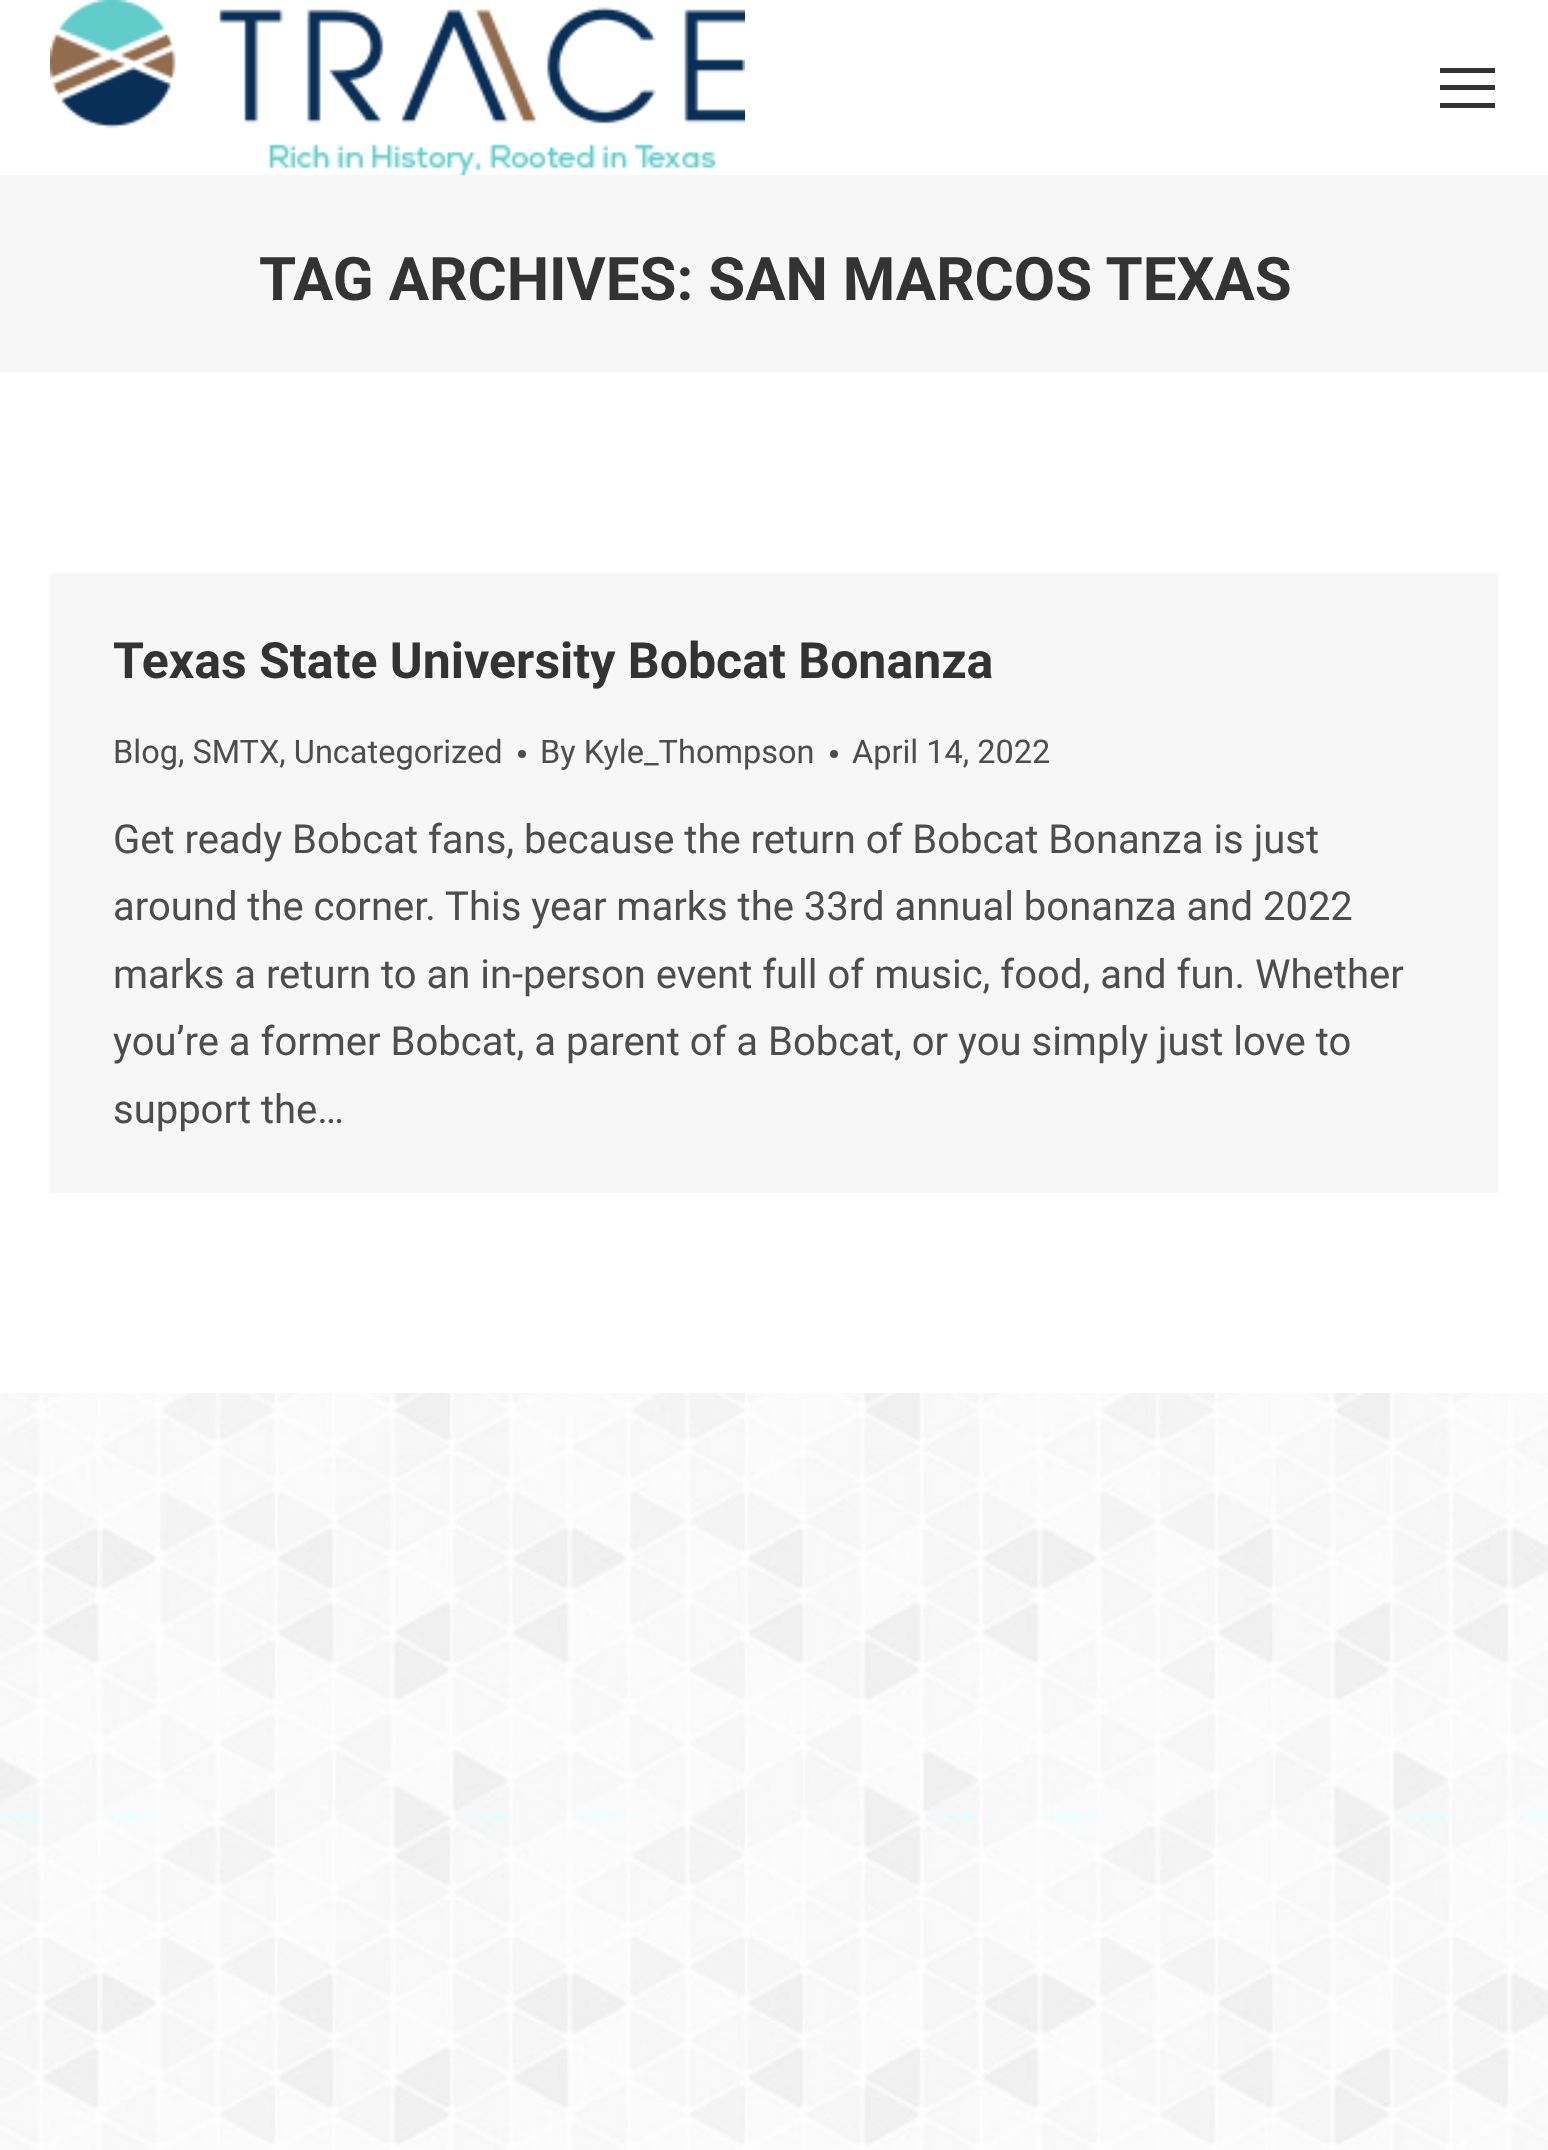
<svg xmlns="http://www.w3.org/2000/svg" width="1548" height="2150">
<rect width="100%" height="100%" fill="#fff"/>
<image x="0" y="1393" width="1548" height="757" href="media/1.png"/>
<image x="50" y="0" width="695" height="175" href="media/2.png"/>
<rect x="1440" y="68" width="55" height="5" fill="#333"/>
<rect x="1440" y="85" width="55" height="5" fill="#333"/>
<rect x="1440" y="103" width="55" height="5" fill="#333"/>
<rect y="175" width="1548" height="198" fill="#f7f7f7"/>
<text x="259" y="300" style="font-family:Roboto;font-size:60px;font-weight:bold;fill:#333">TAG ARCHIVES: SAN MARCOS TEXAS</text>
<rect x="50" y="573" width="1448" height="620" fill="#f7f7f7"/>
<text x="113" y="678" style="font-family:Roboto;font-size:50px;font-weight:bold;fill:#333">Texas State University Bobcat Bonanza</text>
<text x="113" y="763" style="font-family:Roboto;font-size:32.5px;fill:#4d4d4d">Blog, SMTX, Uncategorized</text>
<circle cx="522" cy="754" r="4" fill="#4d4d4d"/>
<text x="540" y="763" style="font-family:Roboto;font-size:32.5px;fill:#4d4d4d">By Kyle_Thompson</text>
<circle cx="834" cy="754" r="4" fill="#4d4d4d"/>
<text x="852" y="763" style="font-family:Roboto;font-size:32.5px;fill:#4d4d4d">April 14, 2022</text>
<text x="113" y="853" style="font-family:Roboto;font-size:40px;fill:#4d4d4d">Get ready Bobcat fans, because the return of Bobcat Bonanza is just</text>
<text x="113" y="920" style="font-family:Roboto;font-size:40px;fill:#4d4d4d">around the corner. This year marks the 33rd annual bonanza and 2022</text>
<text x="113" y="988" style="font-family:Roboto;font-size:40px;fill:#4d4d4d">marks a return to an in-person event full of music, food, and fun. Whether</text>
<text x="113" y="1055" style="font-family:Roboto;font-size:40px;fill:#4d4d4d">you’re a former Bobcat, a parent of a Bobcat, or you simply just love to</text>
<text x="113" y="1123" style="font-family:Roboto;font-size:40px;fill:#4d4d4d">support the…</text>
</svg>
